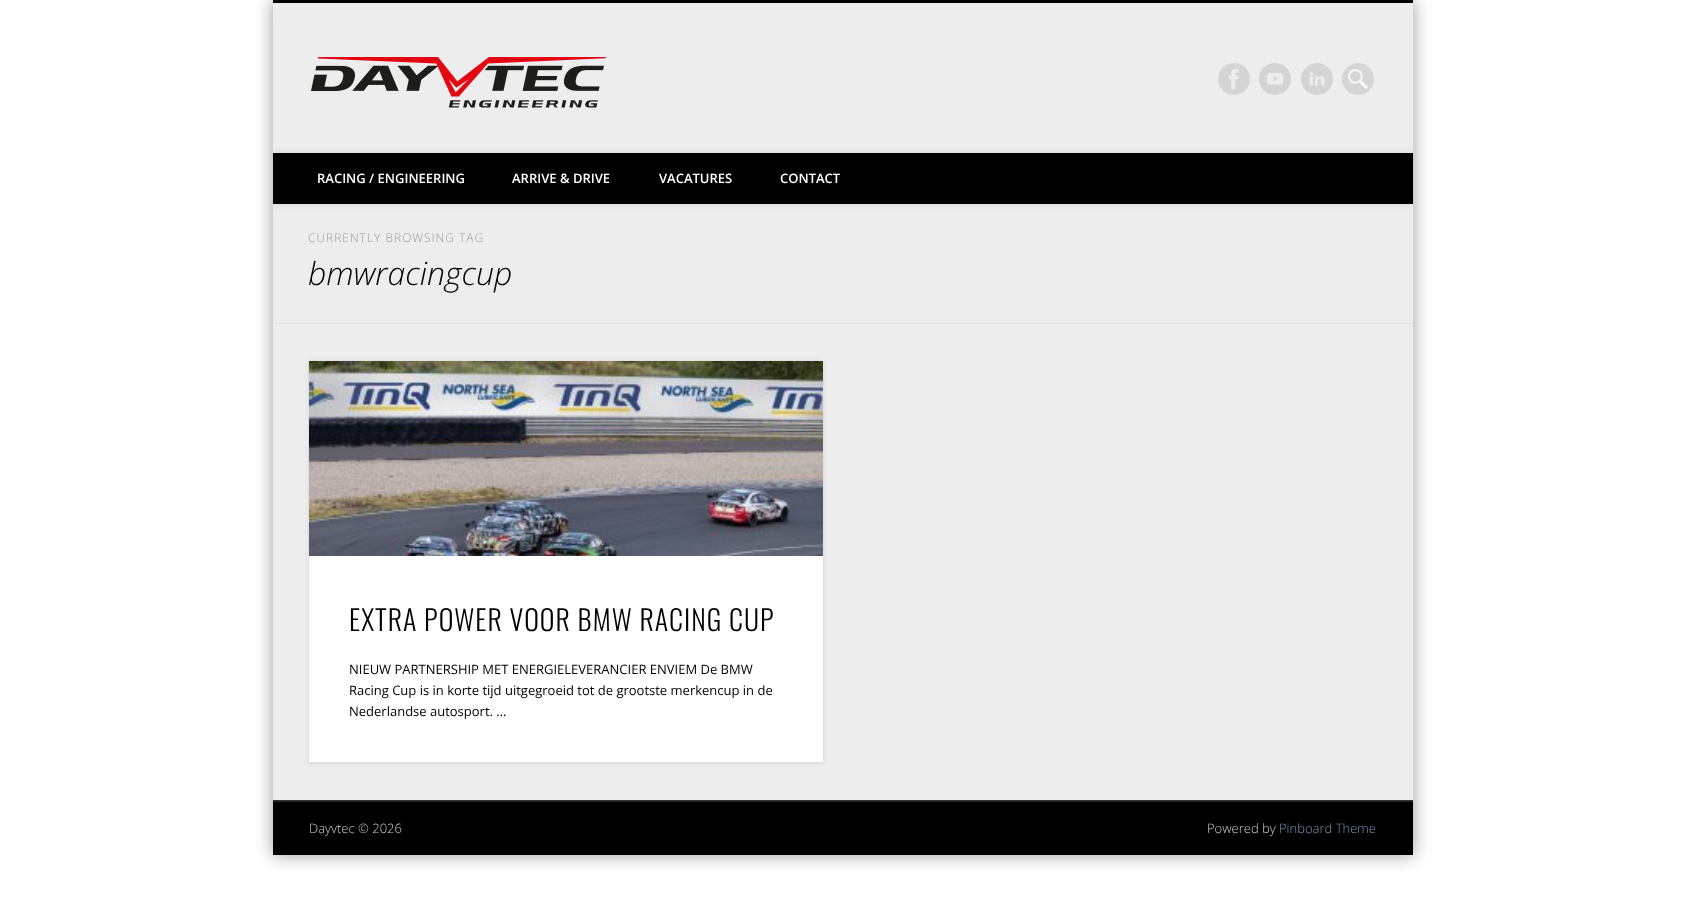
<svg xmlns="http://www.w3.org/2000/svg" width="1685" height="909">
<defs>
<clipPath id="clip1"><rect x="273" y="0" width="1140" height="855"/></clipPath>
</defs>
<rect width="100%" height="100%" fill="#fff"/>
<rect x="273" width="1140" height="855" fill="#00000066" filter="blur(9px)"/>
<rect x="273" y="3" width="1140" height="797" fill="#ededed"/>
<rect x="273" width="1140" height="3" fill="#000"/>
<image x="311" y="57" width="295" height="51" href="media/1.png"/>
<image x="1218" y="63" width="32" height="32" href="media/2.png"/>
<image x="1259" y="63" width="32" height="32" href="media/3.png"/>
<image x="1301" y="63" width="32" height="32" href="media/4.png"/>
<circle cx="1358" cy="79" r="16" fill="#d5d5d5"/>
<image x="1348" y="69" width="20" height="20" href="media/5.png"/>
<g clip-path="url(#clip1)">
<rect x="273" y="153" width="1140" height="51" fill="#0000001a" filter="blur(3.5px)"/>
</g>
<rect x="273" y="153" width="1140" height="51" fill="#000"/>
<text x="317" y="183" style="font-family:Open Sans;font-size:13px;font-weight:600;fill:#fff">RACING / ENGINEERING</text>
<text x="512" y="183" style="font-family:Open Sans;font-size:13px;font-weight:600;fill:#fff">ARRIVE &amp; DRIVE</text>
<text x="659" y="183" style="font-family:Open Sans;font-size:13px;font-weight:600;fill:#fff">VACATURES</text>
<text x="780" y="183" style="font-family:Open Sans;font-size:13px;font-weight:600;fill:#fff">CONTACT</text>
<rect x="273" y="323" width="1140" height="1" fill="#e0e0e0"/>
<text x="308" y="242" style="font-family:Open Sans;font-size:12px;font-weight:300;letter-spacing:1px;fill:#999">CURRENTLY BROWSING TAG</text>
<text x="308" y="285" style="font-family:Open Sans;font-size:32px;font-weight:300;font-style:italic;fill:#000">bmwracingcup</text>
<rect x="309" y="361" width="514" height="402" fill="#0000001a" filter="blur(2.5px)"/>
<rect x="309" y="556" width="514" height="206" fill="#fff"/>
<rect x="309" y="762" width="514" height="1" fill="#dedede"/>
<image x="309" y="361" width="514" height="195" href="media/6.png"/>
<text x="349" y="631" style="font-family:Oswald;font-size:28px;font-weight:300;letter-spacing:1px;fill:#000">EXTRA POWER VOOR BMW RACING CUP</text>
<text x="349" y="674" style="font-family:Open Sans;font-size:13px;fill:#000">NIEUW PARTNERSHIP MET ENERGIELEVERANCIER ENVIEM De BMW</text>
<text x="349" y="695" style="font-family:Open Sans;font-size:13px;fill:#000">Racing Cup is in korte tijd uitgegroeid tot de grootste merkencup in de</text>
<text x="349" y="716" style="font-family:Open Sans;font-size:13px;fill:#000">Nederlandse autosport. …</text>
<rect x="273" y="800" width="1140" height="1" fill="#323232"/>
<rect x="273" y="802" width="1140" height="53" fill="#000"/>
<rect x="273" y="801" width="1140" height="1" fill="#252525"/>
<text x="309" y="833" style="font-family:Open Sans;font-size:13px;font-weight:300;fill:#ccc">Dayvtec © 2026</text>
<text x="1207" y="833" style="font-family:Open Sans;font-size:13px;font-weight:300;fill:#ccc">Powered by</text>
<text x="1279" y="833" style="font-family:Open Sans;font-size:13px;font-weight:300;fill:#7597b9">Pinboard Theme</text>
</svg>
